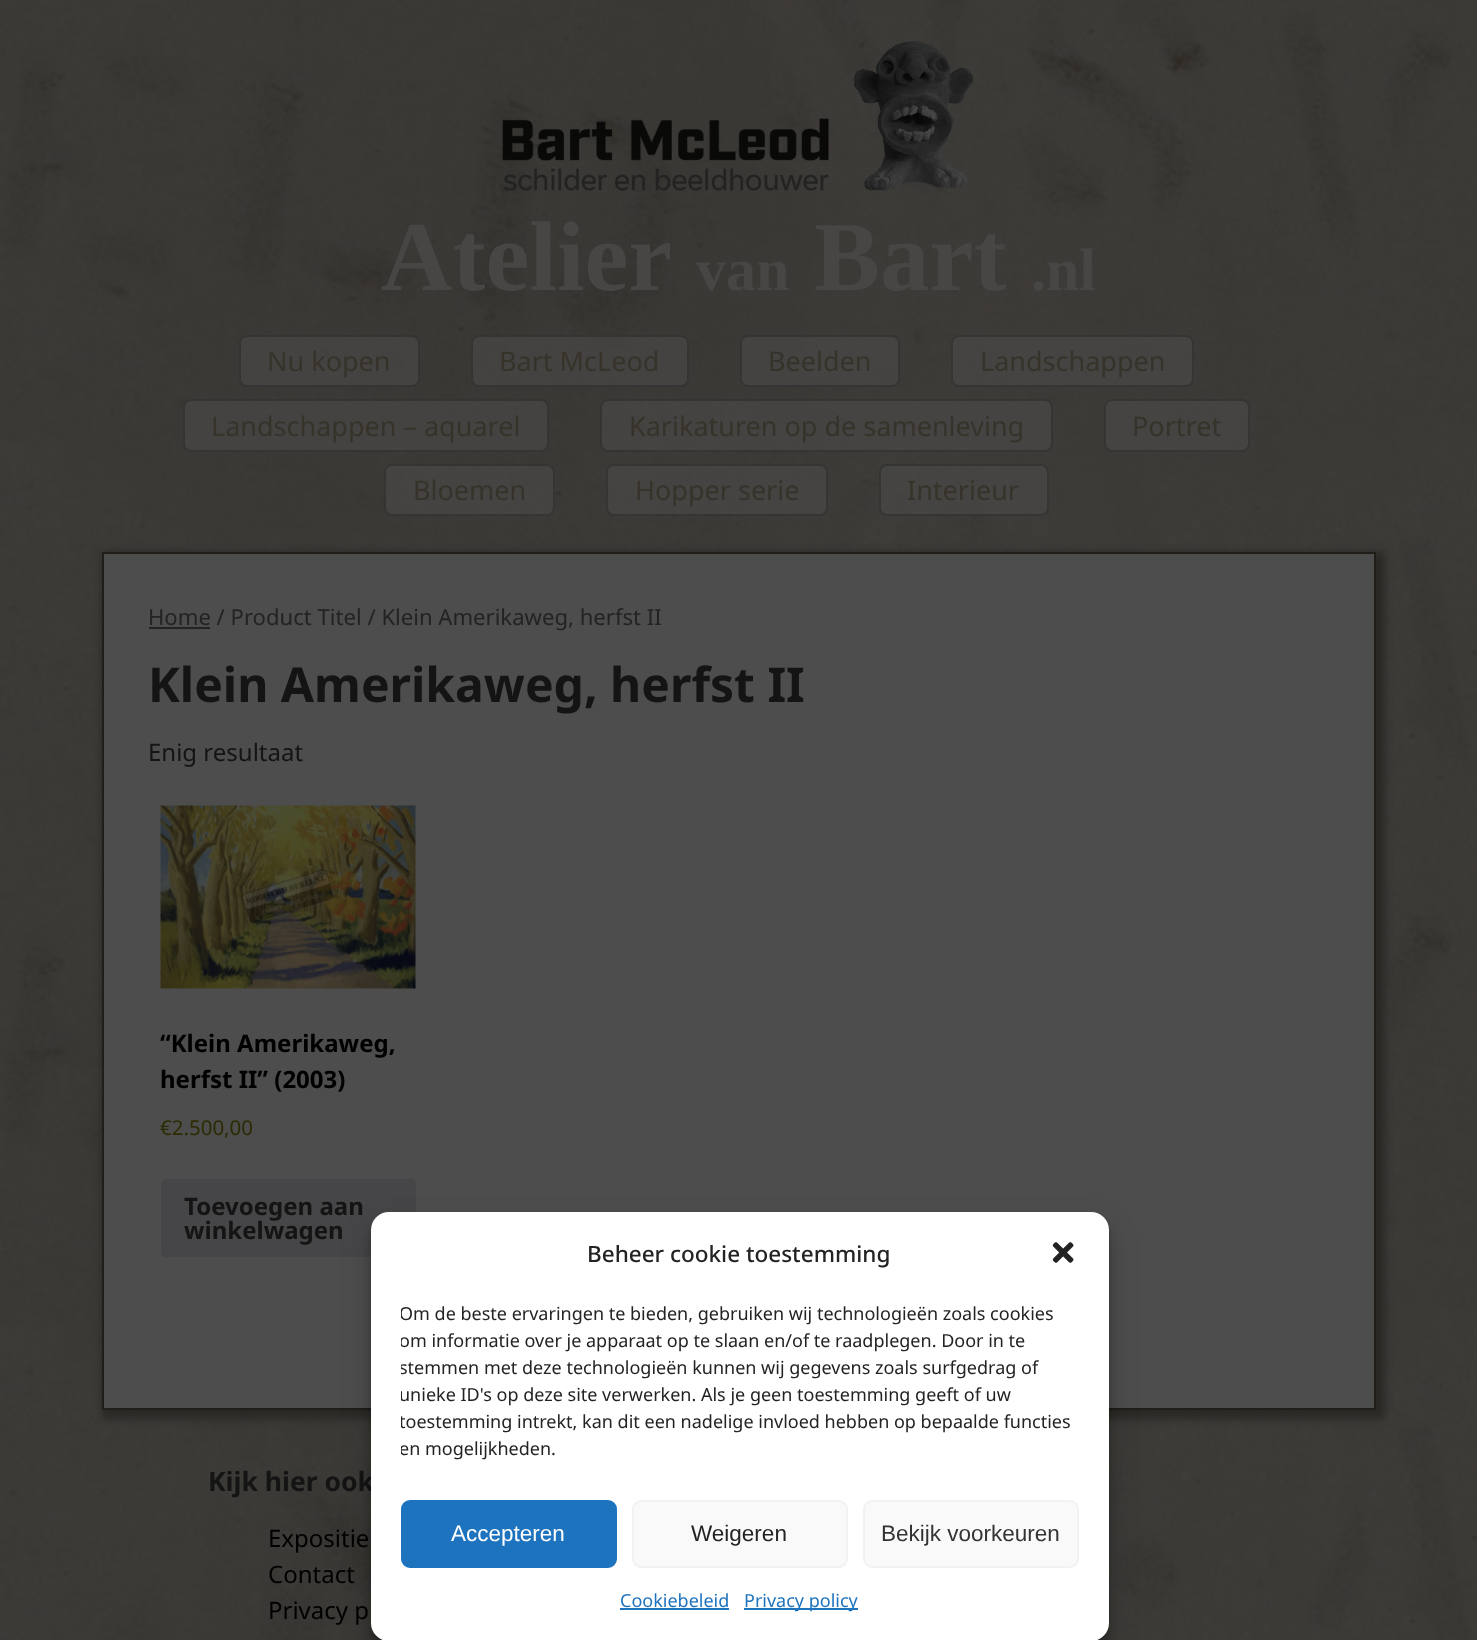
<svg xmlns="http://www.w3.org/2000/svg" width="1477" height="1640">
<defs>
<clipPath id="clip1"><rect x="401" y="1301" width="678" height="169"/></clipPath>
</defs>
<rect width="100%" height="100%" fill="#fff"/>
<image x="0" y="0" width="1477" height="1640" href="media/1.png"/>
<image x="502" y="40" width="473" height="151" href="media/2.png"/>
<text x="381" y="290" style="font-family:Liberation Serif;font-size:99px;font-weight:bold;fill:#474645">Atelier</text>
<text x="696" y="290" style="font-family:Liberation Serif;font-size:60px;font-weight:bold;fill:#474645">van</text>
<text x="814" y="290" style="font-family:Liberation Serif;font-size:99px;font-weight:bold;fill:#474645">Bart</text>
<text x="1031" y="290" style="font-family:Liberation Serif;font-size:60px;font-weight:bold;fill:#474645">.nl</text>
<rect x="239" y="335" width="181" height="52" rx="8" fill="#4d4d4d80"/>
<rect x="240" y="336" width="179" height="50" rx="7" fill="none" stroke="#26262680" stroke-width="2"/>
<text x="267" y="371" style="font-family:Noto Sans;font-size:27px;fill:#37332a">Nu kopen</text>
<rect x="471" y="335" width="218" height="52" rx="8" fill="#4d4d4d80"/>
<rect x="472" y="336" width="216" height="50" rx="7" fill="none" stroke="#26262680" stroke-width="2"/>
<text x="499" y="371" style="font-family:Noto Sans;font-size:27px;fill:#37332a">Bart McLeod</text>
<rect x="740" y="335" width="160" height="52" rx="8" fill="#4d4d4d80"/>
<rect x="741" y="336" width="158" height="50" rx="7" fill="none" stroke="#26262680" stroke-width="2"/>
<text x="768" y="371" style="font-family:Noto Sans;font-size:27px;fill:#37332a">Beelden</text>
<rect x="951" y="335" width="243" height="52" rx="8" fill="#4d4d4d80"/>
<rect x="952" y="336" width="241" height="50" rx="7" fill="none" stroke="#26262680" stroke-width="2"/>
<text x="980" y="371" style="font-family:Noto Sans;font-size:27px;fill:#37332a">Landschappen</text>
<rect x="183" y="399" width="366" height="53" rx="8" fill="#4d4d4d80"/>
<rect x="184" y="400" width="364" height="51" rx="7" fill="none" stroke="#26262680" stroke-width="2"/>
<text x="211" y="436" style="font-family:Noto Sans;font-size:27px;fill:#37332a">Landschappen – aquarel</text>
<rect x="600" y="399" width="453" height="53" rx="8" fill="#4d4d4d80"/>
<rect x="601" y="400" width="451" height="51" rx="7" fill="none" stroke="#26262680" stroke-width="2"/>
<text x="629" y="436" style="font-family:Noto Sans;font-size:27px;fill:#37332a">Karikaturen op de samenleving</text>
<rect x="1104" y="399" width="146" height="53" rx="8" fill="#4d4d4d80"/>
<rect x="1105" y="400" width="144" height="51" rx="7" fill="none" stroke="#26262680" stroke-width="2"/>
<text x="1132" y="436" style="font-family:Noto Sans;font-size:27px;fill:#37332a">Portret</text>
<rect x="384" y="464" width="171" height="52" rx="8" fill="#4d4d4d80"/>
<rect x="385" y="465" width="169" height="50" rx="7" fill="none" stroke="#26262680" stroke-width="2"/>
<text x="413" y="500" style="font-family:Noto Sans;font-size:27px;fill:#37332a">Bloemen</text>
<rect x="606" y="464" width="222" height="52" rx="8" fill="#4d4d4d80"/>
<rect x="607" y="465" width="220" height="50" rx="7" fill="none" stroke="#26262680" stroke-width="2"/>
<text x="635" y="500" style="font-family:Noto Sans;font-size:27px;fill:#37332a">Hopper serie</text>
<rect x="879" y="464" width="170" height="52" rx="8" fill="#4d4d4d80"/>
<rect x="880" y="465" width="168" height="50" rx="7" fill="none" stroke="#26262680" stroke-width="2"/>
<text x="907" y="500" style="font-family:Noto Sans;font-size:27px;fill:#37332a">Interieur</text>
<rect x="102" y="552" width="1283" height="867" fill="#2a2825" filter="blur(4px)"/>
<rect x="103" y="553" width="1272" height="856" fill="#4d4d4d" stroke="#211e19" stroke-width="2"/>
<rect x="149" y="627" width="61" height="2" fill="#232323"/>
<text x="148" y="625" style="font-family:Noto Sans;font-size:22.1px;fill:#232323">Home / Product Titel / Klein Amerikaweg, herfst II</text>
<text x="148" y="702" style="font-family:Noto Sans;font-size:48px;font-weight:bold;fill:#141414">Klein Amerikaweg, herfst II</text>
<text x="148" y="761" style="font-family:Noto Sans;font-size:24px;fill:#141414">Enig resultaat</text>
<image x="160" y="805" width="256" height="184" href="media/3.png"/>
<text x="160" y="1052" style="font-family:Noto Sans;font-size:24px;font-weight:bold;fill:#000">“Klein Amerikaweg,</text>
<text x="160" y="1088" style="font-family:Noto Sans;font-size:24px;font-weight:bold;fill:#000">herfst II” (2003)</text>
<text x="160" y="1135" style="font-family:Noto Sans;font-size:20.5px;fill:#2d2b03">€2.500,00</text>
<rect x="161" y="1179" width="255" height="78" rx="5" fill="#464547"/>
<text x="184" y="1215" style="font-family:Noto Sans;font-size:24px;font-weight:bold;fill:#141414">Toevoegen aan</text>
<text x="184" y="1239" style="font-family:Noto Sans;font-size:24px;font-weight:bold;fill:#141414">winkelwagen</text>
<text x="208" y="1491" style="font-family:Noto Sans;font-size:26.5px;font-weight:bold;fill:#141414">Kijk hier ook</text>
<text x="268" y="1547" style="font-family:Noto Sans;font-size:24px;fill:#000">Expositie</text>
<text x="268" y="1583" style="font-family:Noto Sans;font-size:24px;fill:#000">Contact</text>
<text x="268" y="1619" style="font-family:Noto Sans;font-size:24px;fill:#000">Privacy p</text>
<rect x="371" y="1221" width="738" height="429" rx="18" fill="#0000003b" filter="blur(4.5px)"/>
<rect x="371" y="1227" width="738" height="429" rx="18" fill="#00000030" filter="blur(15px)"/>
<rect x="371" y="1212" width="738" height="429" rx="18" fill="#fff"/>
<text x="587" y="1262" style="font-family:Noto Sans;font-size:22.5px;font-weight:500;fill:#232323">Beheer cookie toestemming</text>
<image x="1052" y="1242" width="22" height="21" href="media/4.png"/>
<g clip-path="url(#clip1)">
<text x="399" y="1320" style="font-family:Noto Sans;font-size:18px;fill:#232323">Om de beste ervaringen te bieden, gebruiken wij technologieën zoals cookies</text>
<text x="399" y="1347" style="font-family:Noto Sans;font-size:18px;fill:#232323">om informatie over je apparaat op te slaan en/of te raadplegen. Door in te</text>
<text x="399" y="1374" style="font-family:Noto Sans;font-size:18px;fill:#232323">stemmen met deze technologieën kunnen wij gegevens zoals surfgedrag of</text>
<text x="399" y="1401" style="font-family:Noto Sans;font-size:18px;fill:#232323">unieke ID's op deze site verwerken. Als je geen toestemming geeft of uw</text>
<text x="399" y="1428" style="font-family:Noto Sans;font-size:18px;fill:#232323">toestemming intrekt, kan dit een nadelige invloed hebben op bepaalde functies</text>
<text x="399" y="1455" style="font-family:Noto Sans;font-size:18px;fill:#232323">en mogelijkheden.</text>
</g>
<rect x="402" y="1501" width="214" height="66" rx="8" fill="#1e73be" stroke="#1e73be" stroke-width="2"/>
<text x="451" y="1541" style="font-family:Liberation Sans;font-size:22.5px;fill:#fff">Accepteren</text>
<rect x="633" y="1501" width="214" height="66" rx="8" fill="#f9f9f9" stroke="#f2f2f2" stroke-width="2"/>
<text x="691" y="1541" style="font-family:Liberation Sans;font-size:22.5px;fill:#232323">Weigeren</text>
<rect x="864" y="1501" width="214" height="66" rx="8" fill="#f9f9f9" stroke="#f2f2f2" stroke-width="2"/>
<text x="881" y="1541" style="font-family:Liberation Sans;font-size:22.5px;fill:#333">Bekijk voorkeuren</text>
<text x="620" y="1607" style="font-family:Noto Sans;font-size:18px;fill:#1e73be">Cookiebeleid</text>
<rect x="620" y="1608" width="109" height="2" fill="#1e73be"/>
<rect x="744" y="1608" width="114" height="2" fill="#1e73be"/>
<text x="744" y="1607" style="font-family:Noto Sans;font-size:18px;fill:#1e73be">Privacy policy</text>
</svg>
